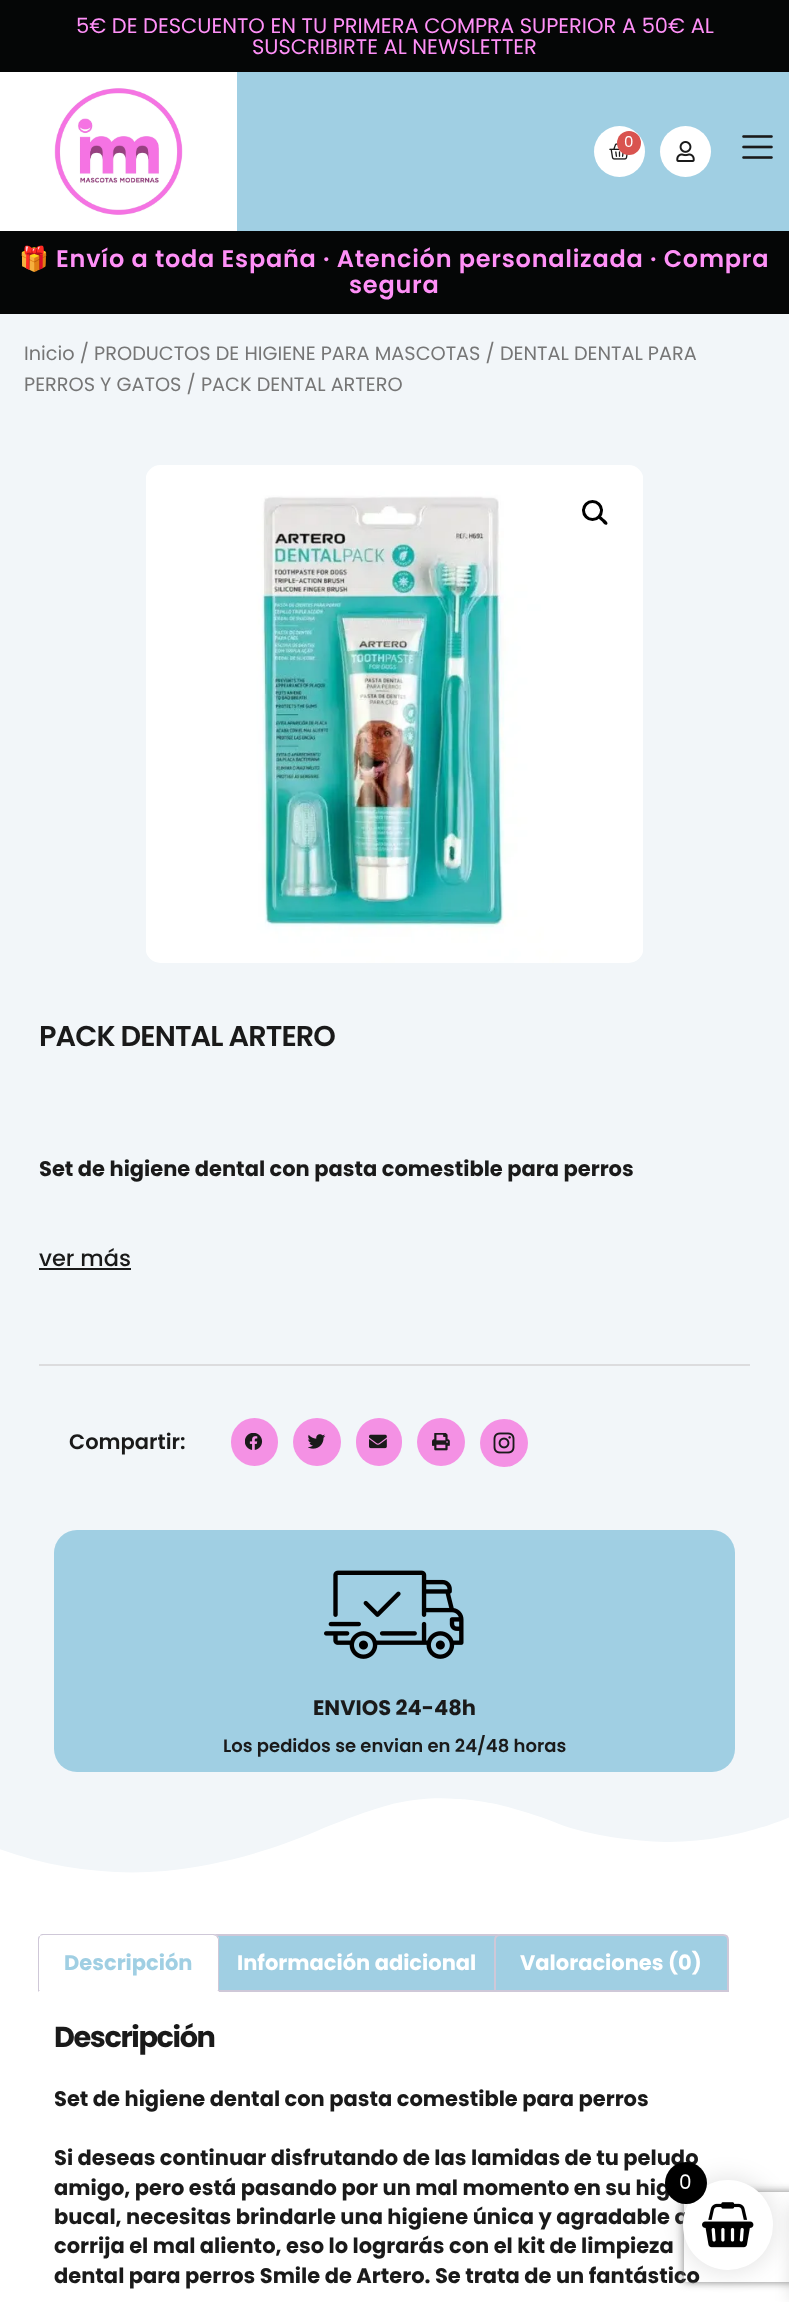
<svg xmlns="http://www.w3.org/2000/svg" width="789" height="2302">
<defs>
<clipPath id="clip1"><rect y="1797" width="789" height="78"/></clipPath>
<clipPath id="clip2"><path d="M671 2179h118v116h-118zm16 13h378c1.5 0 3 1.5 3 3v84c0 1.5-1.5 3-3 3h-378c-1.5 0-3-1.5-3-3v-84c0-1.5 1.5-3 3-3z" clip-rule="evenodd"/></clipPath>
</defs>
<rect width="100%" height="100%" fill="#fff"/>
<rect width="789" height="72" fill="#050606"/>
<text x="76" y="33" style="font-family:Poppins;font-size:21px;fill:#ff90f7">5€ DE DESCUENTO EN TU PRIMERA COMPRA SUPERIOR A 50€ AL</text>
<text x="252" y="54" style="font-family:Poppins;font-size:21px;fill:#ff90f7">SUSCRIBIRTE AL NEWSLETTER</text>
<rect x="237" y="72" width="552" height="159" fill="#a0cfe3"/>
<image x="54" y="88" width="129" height="127" href="media/1.png"/>
<circle cx="619.5" cy="151.5" r="25.5" fill="#fff"/>
<image x="609" y="143" width="19" height="17" href="media/2.png"/>
<circle cx="629" cy="143" r="12" fill="#d9534f"/>
<text x="624" y="147" style="font-family:Poppins;font-size:15px;fill:#fff">0</text>
<circle cx="685.5" cy="151.5" r="25.5" fill="#fff"/>
<image x="676" y="141" width="19" height="21" href="media/3.png"/>
<image x="742" y="135" width="31" height="24" href="media/4.png"/>
<rect y="231" width="789" height="83" fill="#050606"/>
<text x="19" y="267" style="font-family:Noto Color Emoji;font-size:24px;font-weight:bold;letter-spacing:0.75px;fill:#ff90f7">🎁</text>
<text x="56" y="267" style="font-family:Poppins;font-size:24px;font-weight:600;letter-spacing:0.75px;fill:#ff90f7">Envío a toda España · Atención personalizada · Compra</text>
<text x="349" y="293" style="font-family:Poppins;font-size:24px;font-weight:600;letter-spacing:0.75px;fill:#ff90f7">segura</text>
<rect y="314" width="789" height="1559" fill="#f2f6f9"/>
<text x="24" y="360" style="font-family:Poppins;font-size:19.3px;fill:#767676">Inicio / PRODUCTOS DE HIGIENE PARA MASCOTAS / DENTAL DENTAL PARA</text>
<text x="24" y="391" style="font-family:Poppins;font-size:19.3px;fill:#767676">PERROS Y GATOS / PACK DENTAL ARTERO</text>
<image x="146" y="465" width="497" height="498" href="media/5.png"/>
<circle cx="592.5" cy="510.5" r="9" fill="none" stroke="#000" stroke-width="3"/>
<path d="M598.5 516c2-1.5 4.5 2.5 5.5 3c1 1 5 4 3 5.5c-1.5 1.5-4.5-2-5-3c-1-1-5-3.5-3.5-5.5z" fill="#000"/>
<text x="39" y="1046" style="font-family:Poppins;font-size:28.75px;font-weight:600;letter-spacing:-0.9px;fill:#1a1a1a">PACK DENTAL ARTERO</text>
<text x="39" y="1176" style="font-family:Poppins;font-size:21px;font-weight:bold;fill:#1a1a1a">Set de higiene dental con pasta comestible para perros</text>
<text x="39" y="1266" style="font-family:Poppins;font-size:22.5px;font-weight:500;fill:#1a1a1a">ver más</text>
<rect x="39" y="1268" width="92" height="2" fill="#1a1a1a"/>
<rect x="39" y="1364" width="711" height="2" fill="#dcdcde"/>
<text x="69" y="1449" style="font-family:Poppins;font-size:21px;font-weight:600;fill:#1a1a1a">Compartir:</text>
<rect x="231" y="1418" width="47" height="48" rx="23.5" fill="#f491e4"/>
<image x="245" y="1433" width="18" height="17" href="media/6.png"/>
<circle cx="317" cy="1442" r="24" fill="#f491e4"/>
<image x="308" y="1434" width="18" height="15" href="media/7.png"/>
<rect x="356" y="1418" width="46" height="48" rx="23" fill="#f491e4"/>
<image x="369" y="1434" width="18" height="15" href="media/8.png"/>
<circle cx="441" cy="1442" r="24" fill="#f491e4"/>
<image x="432" y="1433" width="18" height="18" href="media/9.png"/>
<circle cx="504" cy="1443" r="24" fill="#f491e4"/>
<image x="493" y="1432" width="22" height="22" href="media/10.png"/>
<rect x="54" y="1530" width="681" height="242" rx="23" fill="#a0cfe3"/>
<image x="324" y="1570" width="140" height="89" href="media/11.png"/>
<text x="313" y="1715" style="font-family:Poppins;font-size:21px;font-weight:bold;fill:#1a1a1a">ENVIOS 24-48h</text>
<text x="223" y="1752" style="font-family:Poppins;font-size:18px;font-weight:600;fill:#1a1a1a">Los pedidos se envian en 24/48 horas</text>
<g clip-path="url(#clip1)">
<path d="M165 1871c47-5 92-15 152-40c23-10 61-24 80-28c18-4 41-6 59-4c8 0 18 1 40 5c21 5 46 13 63 20c32 12 75 17 106 18c68 1 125-25 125-25v59h-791v-27c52 19 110 27 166 22z" fill="#fff"/>
</g>
<path d="M216 1935h281c3 0 5 2 5 5v51h-291v-51c0-3 2-5 5-5z" fill="#a0cfe3" stroke="#cfc8d8" stroke-width="2"/>
<path d="M44 1934h169c3.5 0 6 2.5 6 6v52h-181v-52c0-3.5 2.5-6 6-6z" fill="#fff"/>
<path d="M44 1934c-2 0-4 0-4 2c1-1 3-1 4-1h169l3 1l1-1c-1-1-3-1-4-1z" fill="#cfc8d8"/>
<path d="M217 1935c1 1 2 3 2 5v52l-2-2h1v-51l-2-3z" fill="#cfc8d8"/>
<path d="M219 1992l-2-2h-177l-2 2z" fill="#fff"/>
<path d="M40 1936c-2 0-2 2-2 4v52l2-2h-1v-50c0-2 1-3 1-4z" fill="#cfc8d8"/>
<text x="64" y="1970" style="font-family:Poppins;font-size:21px;font-weight:bold;fill:#a0cfe3">Descripción</text>
<text x="237" y="1970" style="font-family:Poppins;font-size:21px;font-weight:bold;fill:#fff">Información adicional</text>
<path d="M500 1935h223c3 0 5 2 5 5v51h-233v-51c0-3 2-5 5-5z" fill="#a0cfe3" stroke="#cfc8d8" stroke-width="2"/>
<text x="520" y="1970" style="font-family:Poppins;font-size:21px;font-weight:bold;fill:#fff">Valoraciones (0)</text>
<text x="54" y="2047" style="font-family:Poppins;font-size:28.75px;font-weight:bold;letter-spacing:-1.4px;fill:#1a1a1a">Descripción</text>
<text x="54" y="2106" style="font-family:Poppins;font-size:21px;font-weight:bold;fill:#1a1a1a">Set de higiene dental con pasta comestible para perros</text>
<text x="54" y="2165" style="font-family:Poppins;font-size:21px;font-weight:bold;fill:#1a1a1a">Si deseas continuar disfrutando de las lamidas de tu peludo</text>
<text x="54" y="2195" style="font-family:Poppins;font-size:21px;font-weight:bold;fill:#1a1a1a">amigo, pero está pasando por un mal momento en su hig</text>
<text x="54" y="2224" style="font-family:Poppins;font-size:21px;font-weight:bold;fill:#1a1a1a">bucal, necesitas brindarle una higiene única y agradable q</text>
<text x="54" y="2253" style="font-family:Poppins;font-size:21px;font-weight:bold;fill:#1a1a1a">corrija el mal aliento, eso lo lograrás con el kit de limpieza</text>
<text x="54" y="2283" style="font-family:Poppins;font-size:21px;font-weight:bold;fill:#1a1a1a">dental para perros Smile de Artero. Se trata de un fantástico</text>
<rect x="680" y="2177" width="96" height="96" rx="48" fill="#0000001a" filter="blur(11px)"/>
<rect x="789" y="2204" width="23" height="97" fill="#0000001a" filter="blur(7.5px)"/>
<g clip-path="url(#clip2)">
<rect x="684" y="2192" width="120" height="90" rx="3" fill="#808080" filter="blur(4px)"/>
</g>
<circle cx="728" cy="2225" r="45" fill="#fff"/>
<image x="702" y="2202" width="52" height="46" href="media/12.png"/>
<circle cx="686" cy="2183" r="21" fill="#000"/>
<text x="679" y="2189" style="font-family:Poppins;font-size:20px;fill:#fff">0</text>
</svg>
